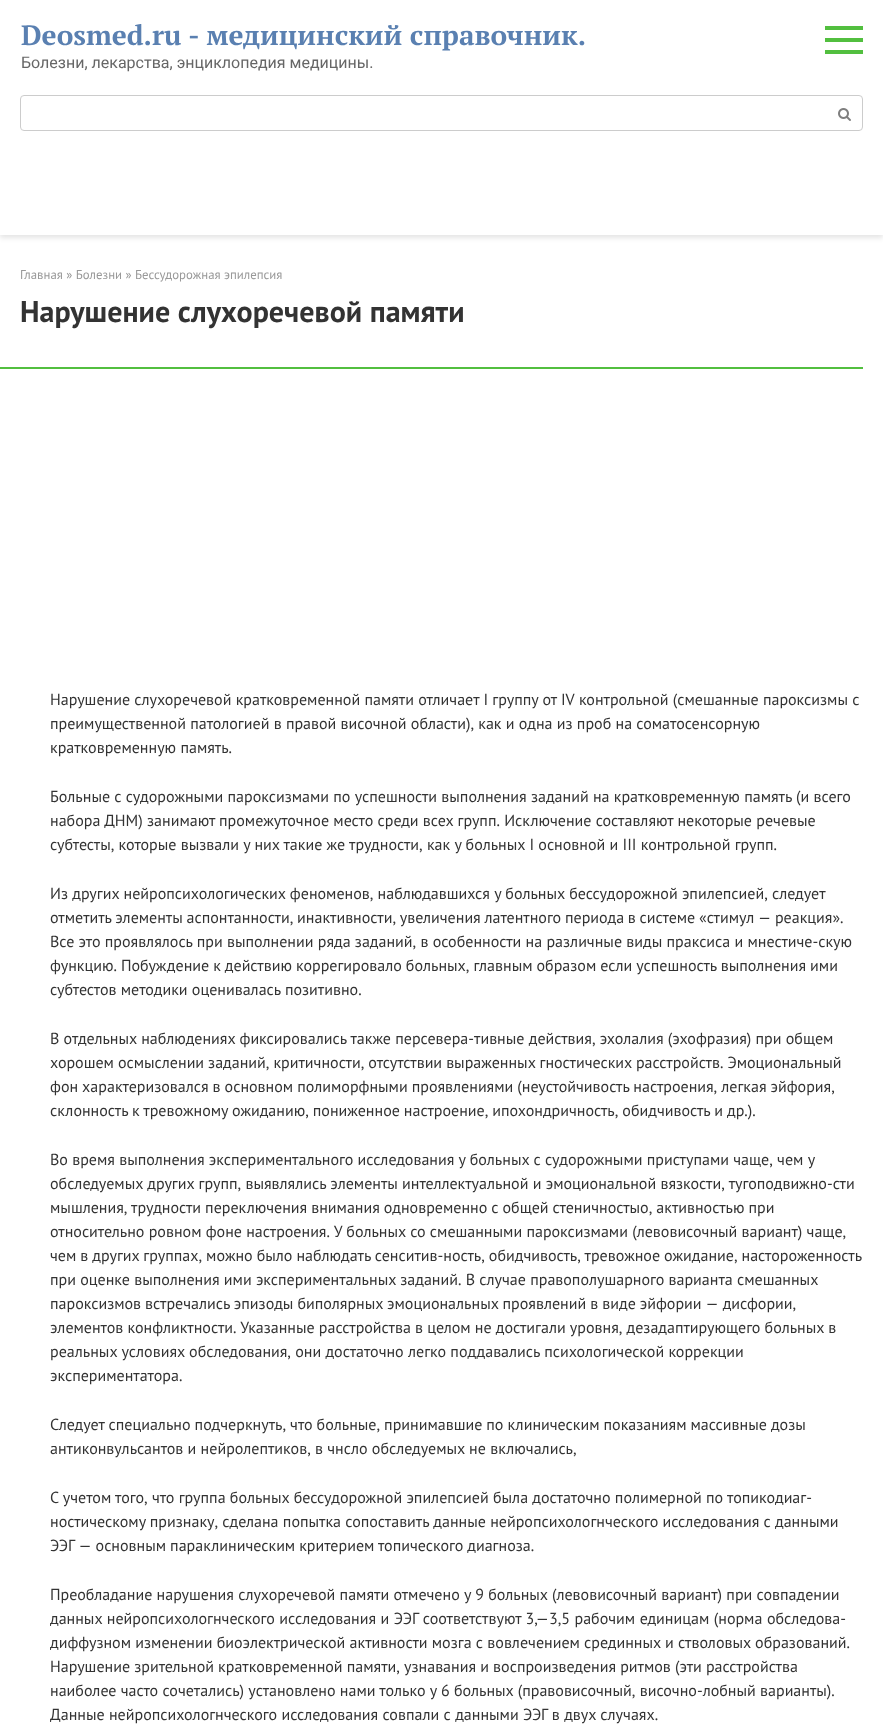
<svg xmlns="http://www.w3.org/2000/svg" width="883" height="1736">
<rect width="100%" height="100%" fill="#fff"/>
<rect y="3" width="883" height="235" fill="#0000001a" filter="blur(2.5px)"/>
<rect width="883" height="235" fill="#fff"/>
<text x="21" y="45" style="font-family:PT Serif;font-size:28px;font-weight:bold;fill:#5a80b1">Deosmed.ru - медицинский справочник.</text>
<text x="21" y="68" style="font-family:Roboto;font-size:16px;fill:#666">Болезни, лекарства, энциклопедия медицины.</text>
<rect x="825" y="26" width="38" height="4" fill="#52bf3f"/>
<rect x="825" y="50" width="38" height="4" fill="#52bf3f"/>
<rect x="825" y="38" width="38" height="4" fill="#52bf3f"/>
<rect x="20.5" y="95.5" width="842" height="35" rx="3.5" fill="none" stroke="#ccc"/>
<image x="838" y="108" width="13" height="13" href="media/1.png"/>
<text x="20" y="279" style="font-family:PT Sans;font-size:12.8px;fill:#999">Главная » Болезни » Бессудорожная эпилепсия</text>
<text x="20" y="322" style="font-family:PT Sans;font-size:30px;font-weight:bold;fill:#333">Нарушение слухоречевой памяти</text>
<rect y="367" width="863" height="2" fill="#52bf3f"/>
<text x="50" y="705" style="font-family:PT Sans;font-size:16px;fill:#333">Нарушение слухоречевой кратковременной памяти отличает I группу от IV контрольной (смешанные пароксизмы с</text>
<text x="50" y="729" style="font-family:PT Sans;font-size:16px;fill:#333">преимущественной патологией в правой височной области), как и одна из проб на соматосенсорную</text>
<text x="50" y="753" style="font-family:PT Sans;font-size:16px;fill:#333">кратковременную память.</text>
<text x="50" y="802" style="font-family:PT Sans;font-size:16px;fill:#333">Больные с судорожными пароксизмами по успешности выполнения заданий на кратковременную память (и всего</text>
<text x="50" y="826" style="font-family:PT Sans;font-size:16px;fill:#333">набора ДНМ) занимают промежуточное место среди всех групп. Исключение составляют некоторые речевые</text>
<text x="50" y="850" style="font-family:PT Sans;font-size:16px;fill:#333">субтесты, которые вызвали у них такие же трудности, как у больных I основной и III контрольной групп.</text>
<text x="50" y="899" style="font-family:PT Sans;font-size:16px;fill:#333">Из других нейропсихологических феноменов, наблюдавшихся у больных бессудорожной эпилепсией, следует</text>
<text x="50" y="923" word-spacing="-0.5" style="font-family:PT Sans;font-size:16px;fill:#333">отметить элементы аспонтанности, инактивности, увеличения латентного периода в системе «стимул — реакция».</text>
<text x="50" y="947" style="font-family:PT Sans;font-size:16px;fill:#333">Все это проявлялось при выполнении ряда заданий, в особенности на различные виды праксиса и мнестиче-скую</text>
<text x="50" y="971" word-spacing="-0.25" style="font-family:PT Sans;font-size:16px;fill:#333">функцию. Побуждение к действию коррегировало больных, главным образом если успешность выполнения ими</text>
<text x="50" y="995" style="font-family:PT Sans;font-size:16px;fill:#333">субтестов методики оценивалась позитивно.</text>
<text x="50" y="1044" style="font-family:PT Sans;font-size:16px;fill:#333">В отдельных наблюдениях фиксировались также персевера-тивные действия, эхолалия (эхофразия) при общем</text>
<text x="50" y="1068" word-spacing="-0.25" style="font-family:PT Sans;font-size:16px;fill:#333">хорошем осмыслении заданий, критичности, отсутствии выраженных гностических расстройств. Эмоциональный</text>
<text x="50" y="1092" word-spacing="-0.25" style="font-family:PT Sans;font-size:16px;fill:#333">фон характеризовался в основном полиморфными проявлениями (неустойчивость настроения, легкая эйфория,</text>
<text x="50" y="1116" word-spacing="-0.25" style="font-family:PT Sans;font-size:16px;fill:#333">склонность к тревожному ожиданию, пониженное настроение, ипохондричность, обидчивость и др.).</text>
<text x="50" y="1165" style="font-family:PT Sans;font-size:16px;fill:#333">Во время выполнения экспериментального исследования у больных с судорожными приступами чаще, чем у</text>
<text x="50" y="1189" style="font-family:PT Sans;font-size:16px;fill:#333">обследуемых других групп, выявлялись элементы интеллектуальной и эмоциональной вязкости, тугоподвижно-сти</text>
<text x="50" y="1213" word-spacing="-0.25" style="font-family:PT Sans;font-size:16px;fill:#333">мышления, трудности переключения внимания одновременно с общей стеничностыо, активностью при</text>
<text x="50" y="1237" style="font-family:PT Sans;font-size:16px;fill:#333">относительно ровном фоне настроения. У больных со смешанными пароксизмами (левовисочный вариант) чаще,</text>
<text x="50" y="1261" word-spacing="-0.25" style="font-family:PT Sans;font-size:16px;fill:#333">чем в других группах, можно было наблюдать сенситив-ность, обидчивость, тревожное ожидание, настороженность</text>
<text x="50" y="1285" style="font-family:PT Sans;font-size:16px;fill:#333">при оценке выполнения ими экспериментальных заданий. В случае правополушарного варианта смешанных</text>
<text x="50" y="1309" word-spacing="-0.25" style="font-family:PT Sans;font-size:16px;fill:#333">пароксизмов встречались эпизоды биполярных эмоциональных проявлений в виде эйфории — дисфории,</text>
<text x="50" y="1333" word-spacing="-0.1" style="font-family:PT Sans;font-size:16px;fill:#333">элементов конфликтности. Указанные расстройства в целом не достигали уровня, дезадаптирующего больных в</text>
<text x="50" y="1357" style="font-family:PT Sans;font-size:16px;fill:#333">реальных условиях обследования, они достаточно легко поддавались психологической коррекции</text>
<text x="50" y="1381" style="font-family:PT Sans;font-size:16px;fill:#333">экспериментатора.</text>
<text x="50" y="1430" word-spacing="-0.25" style="font-family:PT Sans;font-size:16px;fill:#333">Следует специально подчеркнуть, что больные, принимавшие по клиническим показаниям массивные дозы</text>
<text x="50" y="1454" style="font-family:PT Sans;font-size:16px;fill:#333">антиконвульсантов и нейролептиков, в чнсло обследуемых не включались,</text>
<text x="50" y="1503" style="font-family:PT Sans;font-size:16px;fill:#333">С учетом того, что группа больных бессудорожной эпилепсией была достаточно полимерной по топикодиаг-</text>
<text x="50" y="1527" style="font-family:PT Sans;font-size:16px;fill:#333">ностическому признаку, сделана попытка сопоставить данные нейропсихологнческого исследования с данными</text>
<text x="50" y="1551" word-spacing="-0.25" style="font-family:PT Sans;font-size:16px;fill:#333">ЭЭГ — основным параклиническим критерием топического диагноза.</text>
<text x="50" y="1600" style="font-family:PT Sans;font-size:16px;fill:#333">Преобладание нарушения слухоречевой памяти отмечено у 9 больных (левовисочный вариант) при совпадении</text>
<text x="50" y="1624" word-spacing="0.25" style="font-family:PT Sans;font-size:16px;fill:#333">данных нейропсихологнческого исследования и ЭЭГ соответствуют 3,—3,5 рабочим единицам (норма обследова-</text>
<text x="50" y="1648" style="font-family:PT Sans;font-size:16px;fill:#333">диффузном изменении биоэлектрической активности мозга с вовлечением срединных и стволовых образований.</text>
<text x="50" y="1672" word-spacing="-0.1" style="font-family:PT Sans;font-size:16px;fill:#333">Нарушение зрительной кратковременной памяти, узнавания и воспроизведения ритмов (эти расстройства</text>
<text x="50" y="1696" style="font-family:PT Sans;font-size:16px;fill:#333">наиболее часто сочетались) установлено нами только у 6 больных (правовисочный, височно-лобный варианты).</text>
<text x="50" y="1720" word-spacing="0.1" style="font-family:PT Sans;font-size:16px;fill:#333">Данные нейропсихологнческого исследования совпали с данными ЭЭГ в двух случаях.</text>
</svg>
